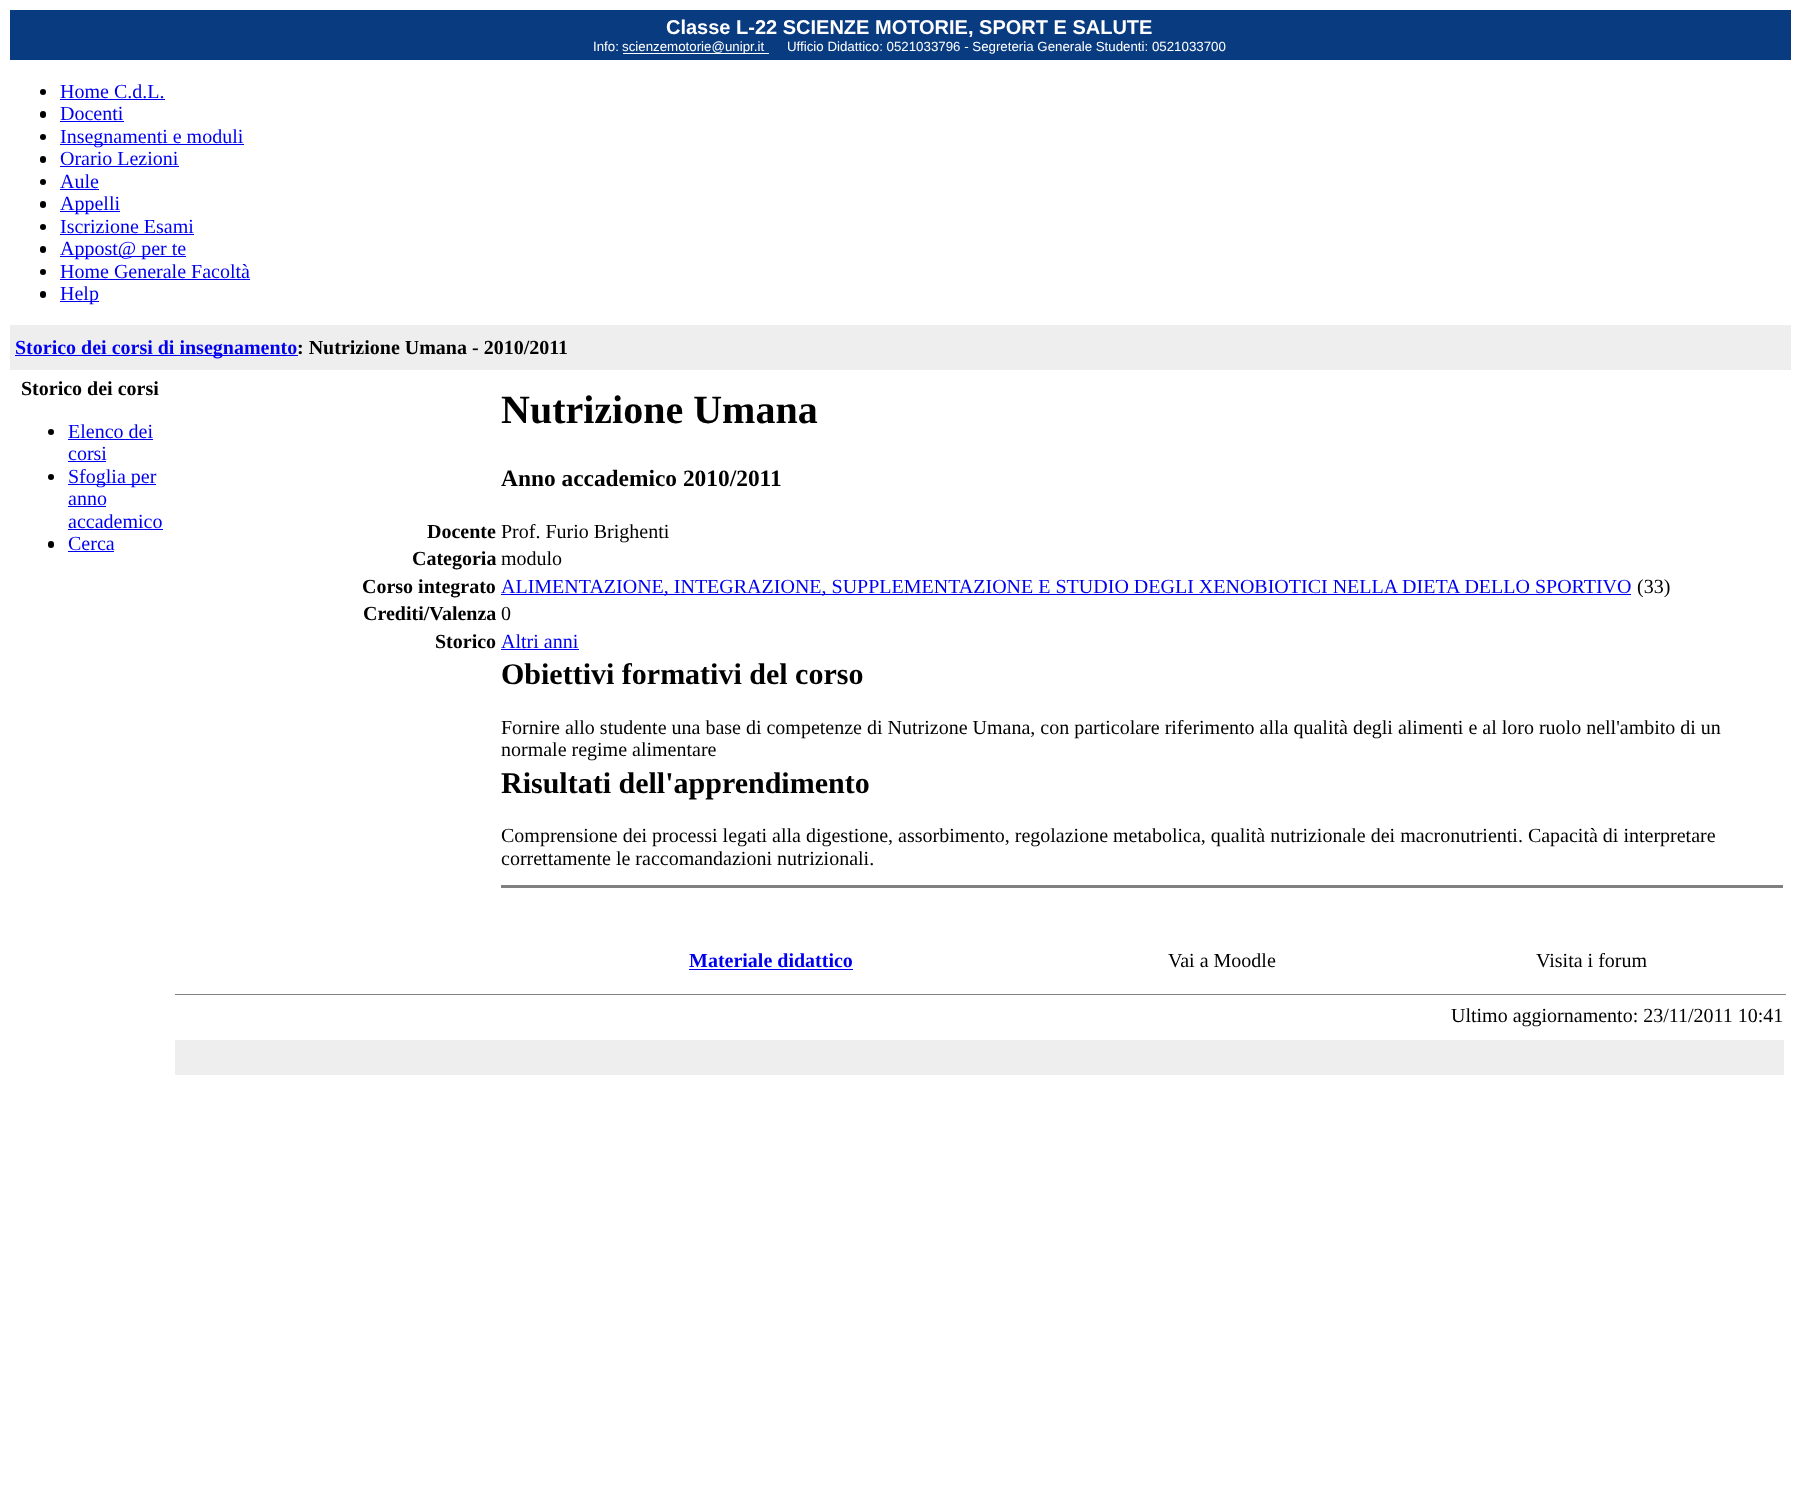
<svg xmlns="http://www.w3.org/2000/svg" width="1801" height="1500">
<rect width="100%" height="100%" fill="#fff"/>
<rect x="10" y="10" width="1781" height="50" fill="#093b81"/>
<text x="666" y="34" style="font-family:Liberation Sans;font-size:20px;font-weight:bold;fill:#fff">Classe L-22 SCIENZE MOTORIE, SPORT E SALUTE</text>
<text x="593" y="51" style="font-family:Liberation Sans;font-size:13.3px;fill:#fff">Info:</text>
<rect x="623" y="53" width="146" height="1" fill="#fff"/>
<text x="622" y="51" style="font-family:Liberation Sans;font-size:13.3px;fill:#fff">scienzemotorie@unipr.it</text>
<text x="787" y="51" style="font-family:Liberation Sans;font-size:13.3px;fill:#fff">Ufficio Didattico: 0521033796 - Segreteria Generale Studenti: 0521033700</text>
<circle cx="43" cy="92" r="3" fill="#000"/>
<text x="60" y="98" style="font-family:Liberation Serif;font-size:20px;fill:#00e">Home C.d.L.</text>
<rect x="60" y="99" width="105" height="1" fill="#00e"/>
<rect x="40" y="111" width="6" height="7" rx="3" fill="#000"/>
<text x="60" y="120" style="font-family:Liberation Serif;font-size:20px;fill:#00e">Docenti</text>
<rect x="60" y="121" width="64" height="1" fill="#00e"/>
<circle cx="43" cy="137" r="3" fill="#000"/>
<rect x="60" y="144" width="184" height="1" fill="#00e"/>
<text x="60" y="143" style="font-family:Liberation Serif;font-size:20px;fill:#00e">Insegnamenti e moduli</text>
<rect x="40" y="156" width="6" height="7" rx="3" fill="#000"/>
<text x="60" y="165" style="font-family:Liberation Serif;font-size:20px;fill:#00e">Orario Lezioni</text>
<rect x="60" y="166" width="119" height="1" fill="#00e"/>
<circle cx="43" cy="182" r="3" fill="#000"/>
<text x="60" y="188" style="font-family:Liberation Serif;font-size:20px;fill:#00e">Aule</text>
<rect x="60" y="189" width="39" height="1" fill="#00e"/>
<rect x="40" y="201" width="6" height="7" rx="3" fill="#000"/>
<rect x="60" y="211" width="60" height="1" fill="#00e"/>
<text x="60" y="210" style="font-family:Liberation Serif;font-size:20px;fill:#00e">Appelli</text>
<circle cx="43" cy="227" r="3" fill="#000"/>
<text x="60" y="233" style="font-family:Liberation Serif;font-size:20px;fill:#00e">Iscrizione Esami</text>
<rect x="60" y="234" width="134" height="1" fill="#00e"/>
<rect x="40" y="246" width="6" height="7" rx="3" fill="#000"/>
<rect x="60" y="256" width="126" height="1" fill="#00e"/>
<text x="60" y="255" style="font-family:Liberation Serif;font-size:20px;fill:#00e">Appost@ per te</text>
<circle cx="43" cy="272" r="3" fill="#000"/>
<text x="60" y="278" style="font-family:Liberation Serif;font-size:20px;fill:#00e">Home Generale Facoltà</text>
<rect x="60" y="279" width="190" height="1" fill="#00e"/>
<rect x="40" y="291" width="6" height="7" rx="3" fill="#000"/>
<rect x="60" y="301" width="39" height="1" fill="#00e"/>
<text x="60" y="300" style="font-family:Liberation Serif;font-size:20px;fill:#00e">Help</text>
<rect x="10" y="325" width="1781" height="45" fill="#eee"/>
<rect x="15" y="355" width="283" height="1" fill="#00e"/>
<text x="15" y="354" style="font-family:Liberation Serif;font-size:20px;font-weight:bold;fill:#00e">Storico dei corsi di insegnamento</text>
<text x="297" y="354" style="font-family:Liberation Serif;font-size:20px;font-weight:bold;fill:#000">: Nutrizione Umana - 2010/2011</text>
<text x="21" y="395" style="font-family:Liberation Serif;font-size:20px;font-weight:bold;fill:#000">Storico dei corsi</text>
<circle cx="51" cy="432" r="3" fill="#000"/>
<text x="68" y="438" style="font-family:Liberation Serif;font-size:20px;fill:#00e">Elenco dei</text>
<rect x="68" y="439" width="85" height="1" fill="#00e"/>
<text x="68" y="460" style="font-family:Liberation Serif;font-size:20px;fill:#00e">corsi</text>
<rect x="68" y="461" width="38" height="1" fill="#00e"/>
<circle cx="51" cy="477" r="3" fill="#000"/>
<rect x="68" y="484" width="88" height="1" fill="#00e"/>
<text x="68" y="483" style="font-family:Liberation Serif;font-size:20px;fill:#00e">Sfoglia per</text>
<text x="68" y="505" style="font-family:Liberation Serif;font-size:20px;fill:#00e">anno</text>
<rect x="68" y="506" width="38" height="1" fill="#00e"/>
<text x="68" y="528" style="font-family:Liberation Serif;font-size:20px;fill:#00e">accademico</text>
<rect x="68" y="529" width="95" height="1" fill="#00e"/>
<rect x="48" y="541" width="6" height="7" rx="3" fill="#000"/>
<text x="68" y="550" style="font-family:Liberation Serif;font-size:20px;fill:#00e">Cerca</text>
<rect x="68" y="551" width="46" height="1" fill="#00e"/>
<text x="501" y="423" style="font-family:Liberation Serif;font-size:40px;font-weight:bold;fill:#000">Nutrizione Umana</text>
<text x="501" y="486" style="font-family:Liberation Serif;font-size:23.4px;font-weight:bold;fill:#000">Anno accademico 2010/2011</text>
<text x="427" y="538" style="font-family:Liberation Serif;font-size:20px;font-weight:bold;fill:#000">Docente</text>
<text x="501" y="538" style="font-family:Liberation Serif;font-size:20px;fill:#000">Prof. Furio Brighenti</text>
<text x="412" y="565" style="font-family:Liberation Serif;font-size:20px;font-weight:bold;fill:#000">Categoria</text>
<text x="501" y="565" style="font-family:Liberation Serif;font-size:20px;fill:#000">modulo</text>
<text x="362" y="593" style="font-family:Liberation Serif;font-size:20px;font-weight:bold;fill:#000">Corso integrato</text>
<rect x="501" y="594" width="1130" height="1" fill="#00e"/>
<text x="501" y="593" style="font-family:Liberation Serif;font-size:20px;fill:#00e">ALIMENTAZIONE, INTEGRAZIONE, SUPPLEMENTAZIONE E STUDIO DEGLI XENOBIOTICI NELLA DIETA DELLO SPORTIVO</text>
<text x="1637" y="593" style="font-family:Liberation Serif;font-size:20px;fill:#000">(33)</text>
<text x="363" y="620" style="font-family:Liberation Serif;font-size:20px;font-weight:bold;fill:#000">Crediti/Valenza</text>
<text x="501" y="620" style="font-family:Liberation Serif;font-size:20px;fill:#000">0</text>
<text x="435" y="648" style="font-family:Liberation Serif;font-size:20px;font-weight:bold;fill:#000">Storico</text>
<text x="501" y="648" style="font-family:Liberation Serif;font-size:20px;fill:#00e">Altri anni</text>
<rect x="501" y="649" width="78" height="1" fill="#00e"/>
<text x="501" y="684" style="font-family:Liberation Serif;font-size:30px;font-weight:bold;fill:#000">Obiettivi formativi del corso</text>
<text x="501" y="734" style="font-family:Liberation Serif;font-size:20px;fill:#000">Fornire allo studente una base di competenze di Nutrizone Umana, con particolare riferimento alla qualità degli alimenti e al loro ruolo nell'ambito di un</text>
<text x="501" y="756" style="font-family:Liberation Serif;font-size:20px;fill:#000">normale regime alimentare</text>
<text x="501" y="793" style="font-family:Liberation Serif;font-size:30px;font-weight:bold;fill:#000">Risultati dell'apprendimento</text>
<text x="501" y="842" style="font-family:Liberation Serif;font-size:20px;fill:#000">Comprensione dei processi legati alla digestione, assorbimento, regolazione metabolica, qualità nutrizionale dei macronutrienti. Capacità di interpretare</text>
<text x="501" y="865" style="font-family:Liberation Serif;font-size:20px;fill:#000">correttamente le raccomandazioni nutrizionali.</text>
<rect x="501" y="885" width="1282" height="3" fill="#808080"/>
<text x="689" y="967" style="font-family:Liberation Serif;font-size:20px;font-weight:bold;fill:#00e">Materiale didattico</text>
<rect x="689" y="969" width="164" height="1" fill="#00e"/>
<text x="1168" y="967" style="font-family:Liberation Serif;font-size:20px;fill:#000">Vai a Moodle</text>
<text x="1536" y="967" style="font-family:Liberation Serif;font-size:20px;fill:#000">Visita i forum</text>
<rect x="175" y="994" width="1611" height="1" fill="#808080"/>
<text x="1451" y="1022" style="font-family:Liberation Serif;font-size:20px;fill:#000">Ultimo aggiornamento: 23/11/2011 10:41</text>
<rect x="175" y="1040" width="1609" height="35" fill="#eee"/>
</svg>
